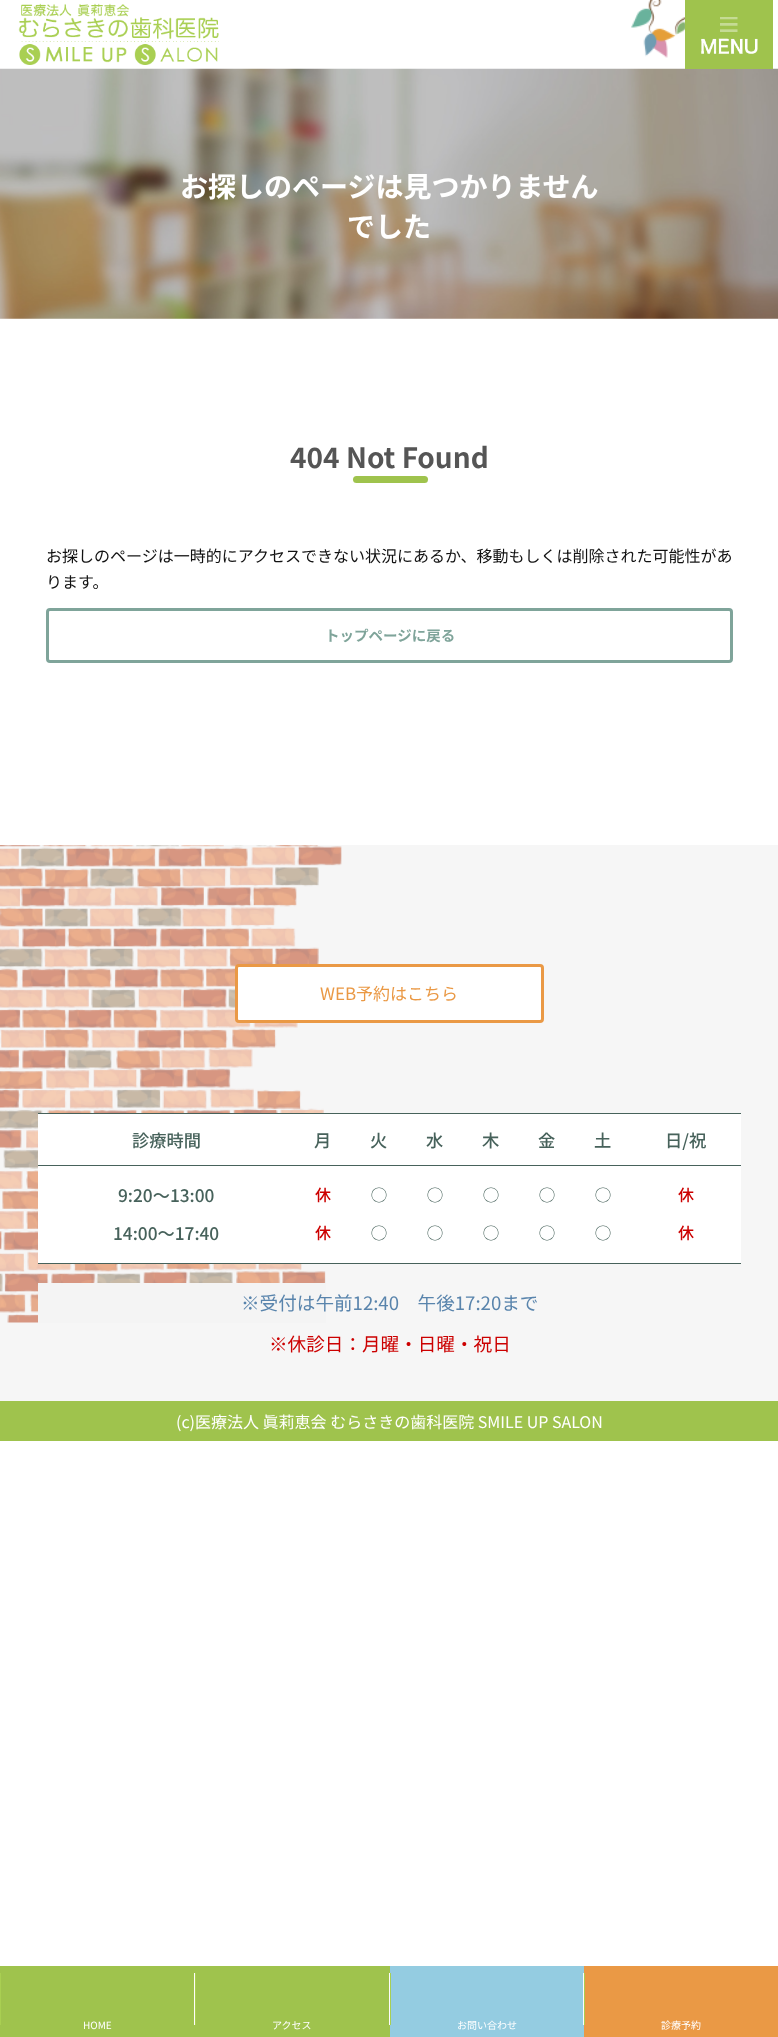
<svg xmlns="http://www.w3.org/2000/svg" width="778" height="2037">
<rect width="100%" height="100%" fill="#fff"/>
<image x="631" y="0" width="54" height="58" href="media/1.png"/>
<image x="18" y="3" width="201" height="62" href="media/2.png"/>
<image x="0" y="68" width="778" height="251" href="media/4.png"/>
<rect x="685" width="88" height="69" fill="#9fc34d"/>
<image x="701" y="17" width="57" height="37" href="media/3.png"/>
<text x="180" y="197" style="font-family:Noto Sans JP;font-size:28px;font-weight:bold;fill:#fff">お探しのページは見つかりません</text>
<text x="347" y="237" style="font-family:Noto Sans JP;font-size:28px;font-weight:bold;fill:#fff">でした</text>
<text x="290" y="468" style="font-family:Noto Sans JP;font-size:28px;font-weight:bold;fill:#555">404 Not Found</text>
<rect x="353" y="476" width="75" height="7" rx="3.5" fill="#9fc34d"/>
<text x="46" y="562" style="font-family:Noto Sans JP;font-size:16px;fill:#111">お探しのページは一時的にアクセスできない状況にあるか、移動もしくは削除された可能性があ</text>
<text x="46" y="588" style="font-family:Noto Sans JP;font-size:16px;fill:#111">ります。</text>
<rect x="47.5" y="609.5" width="684" height="52" rx="2.5" fill="none" stroke="#7fa49a" stroke-width="3"/>
<text x="325" y="641" style="font-family:Noto Sans JP;font-size:14.5px;font-weight:bold;fill:#7fa49a">トップページに戻る</text>
<rect y="845" width="778" height="556" fill="#f6f6f6"/>
<image x="0" y="845" width="342" height="478" href="media/5.png"/>
<rect x="236.5" y="965.5" width="306" height="56" rx="2.5" fill="#fff" stroke="#ea9945" stroke-width="3"/>
<text x="320" y="1000" style="font-family:Noto Sans JP;font-size:17px;fill:#ea9945">WEB予約はこちら</text>
<rect x="38" y="1114" width="703" height="149" fill="#fff"/>
<rect x="38" y="1113" width="703" height="1" fill="#47625b"/>
<rect x="38" y="1263" width="703" height="1" fill="#47625b"/>
<text x="132" y="1147" style="font-family:Noto Sans JP;font-size:17.25px;font-weight:500;fill:#47625b">診療時間</text>
<text x="314" y="1147" style="font-family:Noto Sans JP;font-size:17.25px;font-weight:500;fill:#47625b">月</text>
<text x="370" y="1147" style="font-family:Noto Sans JP;font-size:17.25px;font-weight:500;fill:#47625b">火</text>
<text x="426" y="1147" style="font-family:Noto Sans JP;font-size:17.25px;font-weight:500;fill:#47625b">水</text>
<text x="482" y="1147" style="font-family:Noto Sans JP;font-size:17.25px;font-weight:500;fill:#47625b">木</text>
<text x="538" y="1147" style="font-family:Noto Sans JP;font-size:17.25px;font-weight:500;fill:#47625b">金</text>
<text x="594" y="1147" style="font-family:Noto Sans JP;font-size:17.25px;font-weight:500;fill:#47625b">土</text>
<rect x="38" y="1165" width="703" height="1" fill="#47625b"/>
<text x="665" y="1147" style="font-family:Noto Sans JP;font-size:17.25px;font-weight:500;fill:#47625b">日/祝</text>
<text x="118" y="1202" style="font-family:Noto Sans JP;font-size:17.25px;font-weight:500;fill:#47625b">9:20～13:00</text>
<text x="315" y="1201" style="font-family:Noto Sans JP;font-size:16px;font-weight:500;fill:#c00">休</text>
<text x="371" y="1201" style="font-family:Noto Sans JP;font-size:16px;font-weight:500;fill:#47625b">◯</text>
<text x="427" y="1201" style="font-family:Noto Sans JP;font-size:16px;font-weight:500;fill:#47625b">◯</text>
<text x="483" y="1201" style="font-family:Noto Sans JP;font-size:16px;font-weight:500;fill:#47625b">◯</text>
<text x="539" y="1201" style="font-family:Noto Sans JP;font-size:16px;font-weight:500;fill:#47625b">◯</text>
<text x="595" y="1201" style="font-family:Noto Sans JP;font-size:16px;font-weight:500;fill:#47625b">◯</text>
<text x="678" y="1201" style="font-family:Noto Sans JP;font-size:16px;font-weight:500;fill:#c00">休</text>
<text x="113" y="1240" style="font-family:Noto Sans JP;font-size:17.25px;font-weight:500;fill:#47625b">14:00～17:40</text>
<text x="315" y="1239" style="font-family:Noto Sans JP;font-size:16px;font-weight:500;fill:#c00">休</text>
<text x="371" y="1239" style="font-family:Noto Sans JP;font-size:16px;font-weight:500;fill:#47625b">◯</text>
<text x="427" y="1239" style="font-family:Noto Sans JP;font-size:16px;font-weight:500;fill:#47625b">◯</text>
<text x="483" y="1239" style="font-family:Noto Sans JP;font-size:16px;font-weight:500;fill:#47625b">◯</text>
<text x="539" y="1239" style="font-family:Noto Sans JP;font-size:16px;font-weight:500;fill:#47625b">◯</text>
<text x="595" y="1239" style="font-family:Noto Sans JP;font-size:16px;font-weight:500;fill:#47625b">◯</text>
<text x="678" y="1239" style="font-family:Noto Sans JP;font-size:16px;font-weight:500;fill:#c00">休</text>
<rect x="38" y="1283" width="288" height="40" fill="#f4f4f4"/>
<text x="241" y="1310" style="font-family:Noto Sans JP;font-size:18.6px;fill:#5984ac">※受付は午前12:40　午後17:20まで</text>
<text x="269" y="1351" style="font-family:Noto Sans JP;font-size:18.6px;fill:#c00">※休診日：月曜・日曜・祝日</text>
<rect y="1401" width="778" height="40" fill="#9fc34d"/>
<text x="176" y="1428" style="font-family:Noto Sans JP;font-size:16px;fill:#fff">(c)医療法人 眞莉恵会 むらさきの歯科医院 SMILE UP SALON</text>
<rect y="1966" width="390" height="71" fill="#9fc34d"/>
<rect y="1973" width="1" height="52" fill="#a9cf52"/>
<text x="83" y="2029" style="font-family:Noto Sans JP;font-size:10px;fill:#fff">HOME</text>
<rect x="194" y="1973" width="1" height="52" fill="#fffcfc"/>
<rect x="195" y="1973" width="1" height="52" fill="#a9cf52"/>
<text x="272" y="2029" style="font-family:Noto Sans JP;font-size:10px;fill:#fff">アクセス</text>
<rect x="389" y="1973" width="1" height="52" fill="#fffcfc"/>
<rect x="390" y="1966" width="194" height="71" fill="#94cce1"/>
<rect x="390" y="1973" width="1" height="52" fill="#a9cf52"/>
<text x="457" y="2029" style="font-family:Noto Sans JP;font-size:10px;fill:#fff">お問い合わせ</text>
<rect x="583" y="1973" width="1" height="52" fill="#fffcfc"/>
<rect x="584" y="1966" width="194" height="71" fill="#ea9945"/>
<rect x="584" y="1973" width="1" height="52" fill="#a9cf52"/>
<text x="661" y="2029" style="font-family:Noto Sans JP;font-size:10px;fill:#fff">診療予約</text>
</svg>
